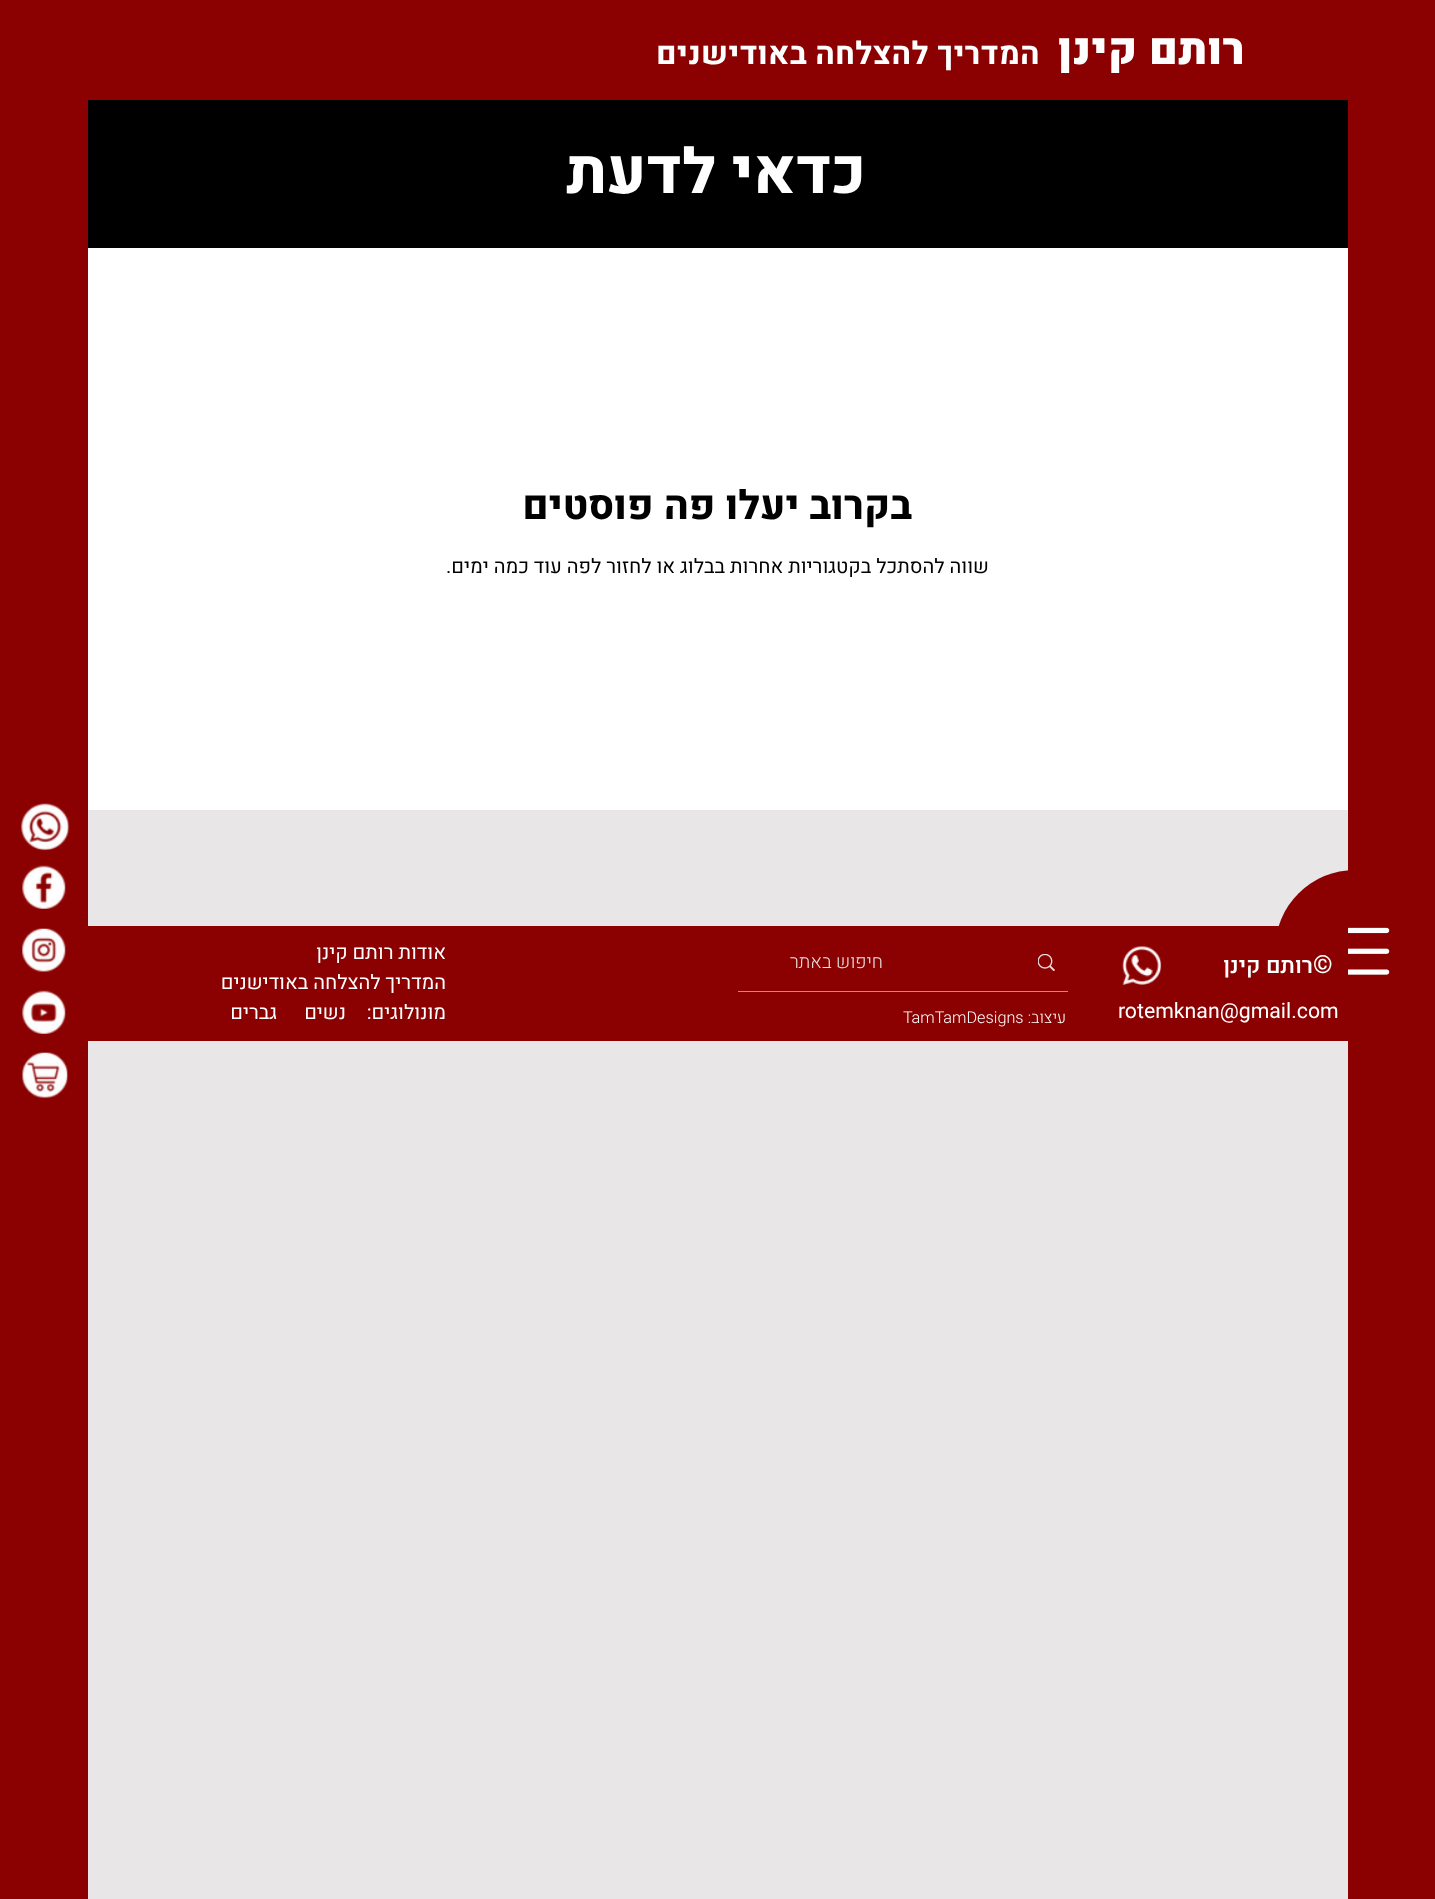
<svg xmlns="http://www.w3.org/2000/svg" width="1435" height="1899">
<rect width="100%" height="100%" fill="#e8e6e6"/>
<rect width="1435" height="100" fill="#8b0000"/>
<text x="1245" y="64" style="font-family:Heebo;font-size:43.75px;font-weight:900;letter-spacing:0.4px;direction:rtl;fill:#fff">רותם קינן</text>
<text x="1040" y="64" style="font-family:Heebo;font-size:31.25px;font-weight:bold;letter-spacing:0.4px;direction:rtl;fill:#fff">המדריך להצלחה באודישנים</text>
<rect x="1348" y="100" width="87" height="1799" fill="#8b0000"/>
<circle cx="1355" cy="950" r="80" fill="#8b0000"/>
<image x="1348" y="927" width="42" height="48" href="media/1.png"/>
<rect x="88" y="100" width="1260" height="148" fill="#000"/>
<text x="866" y="193" style="font-family:Heebo;font-size:62.5px;font-weight:800;direction:rtl;fill:#fff">כדאי לדעת</text>
<rect x="88" y="248" width="1260" height="562" fill="#fff"/>
<text x="912" y="519" style="font-family:Heebo;font-size:40px;font-weight:800;direction:rtl;fill:#000">בקרוב יעלו פה פוסטים</text>
<text x="989" y="573" style="font-family:Heebo;font-size:20px;direction:rtl;fill:#000">שווה להסתכל בקטגוריות אחרות בבלוג או לחזור לפה עוד כמה ימים.</text>
<rect y="100" width="88" height="1799" fill="#8b0000"/>
<image x="21" y="803" width="49" height="48" href="media/2.png"/>
<image x="22" y="865" width="44" height="44" href="media/3.png"/>
<image x="22" y="928" width="44" height="44" href="media/4.png"/>
<image x="22" y="990" width="44" height="44" href="media/5.png"/>
<image x="22" y="1052" width="46" height="46" href="media/6.png"/>
<rect x="88" y="926" width="1260" height="115" fill="#8b0000"/>
<text x="1313" y="973" style="font-family:Heebo;font-size:25px;font-weight:500;fill:#fff">©</text>
<text x="1313" y="973" style="font-family:Heebo;font-size:22.5px;font-weight:500;direction:rtl;fill:#fff">רותם קינן</text>
<image x="1122" y="946" width="40" height="39" href="media/7.png"/>
<text x="1118" y="1018" style="font-family:Heebo;font-size:21.25px;fill:#fff">rotemknan@gmail.com</text>
<rect x="738" y="991" width="330" height="1" fill="#c38a8a"/>
<image x="1038" y="954" width="17" height="17" href="media/8.png"/>
<text x="883" y="968" style="font-family:Heebo;font-size:18.75px;font-weight:300;direction:rtl;fill:#e8e6e6">חיפוש באתר</text>
<text x="446" y="959" style="font-family:Heebo;font-size:20px;direction:rtl;fill:#fff">אודות רותם קינן</text>
<text x="446" y="989" style="font-family:Heebo;font-size:20px;direction:rtl;fill:#fff">המדריך להצלחה באודישנים</text>
<text x="1066" y="1023" style="font-family:Heebo;font-size:16.25px;font-weight:300;direction:rtl;fill:#fff">עיצוב:</text>
<text x="903" y="1023" style="font-family:Heebo;font-size:16.25px;font-weight:300;fill:#fff">TamTamDesigns</text>
<text x="446" y="1019" style="font-family:Heebo;font-size:20px;direction:rtl;fill:#fff">מונולוגים:</text>
<text x="346" y="1019" style="font-family:Heebo;font-size:20px;direction:rtl;fill:#fff">נשים</text>
<text x="277" y="1019" style="font-family:Heebo;font-size:20px;direction:rtl;fill:#fff">גברים</text>
</svg>
